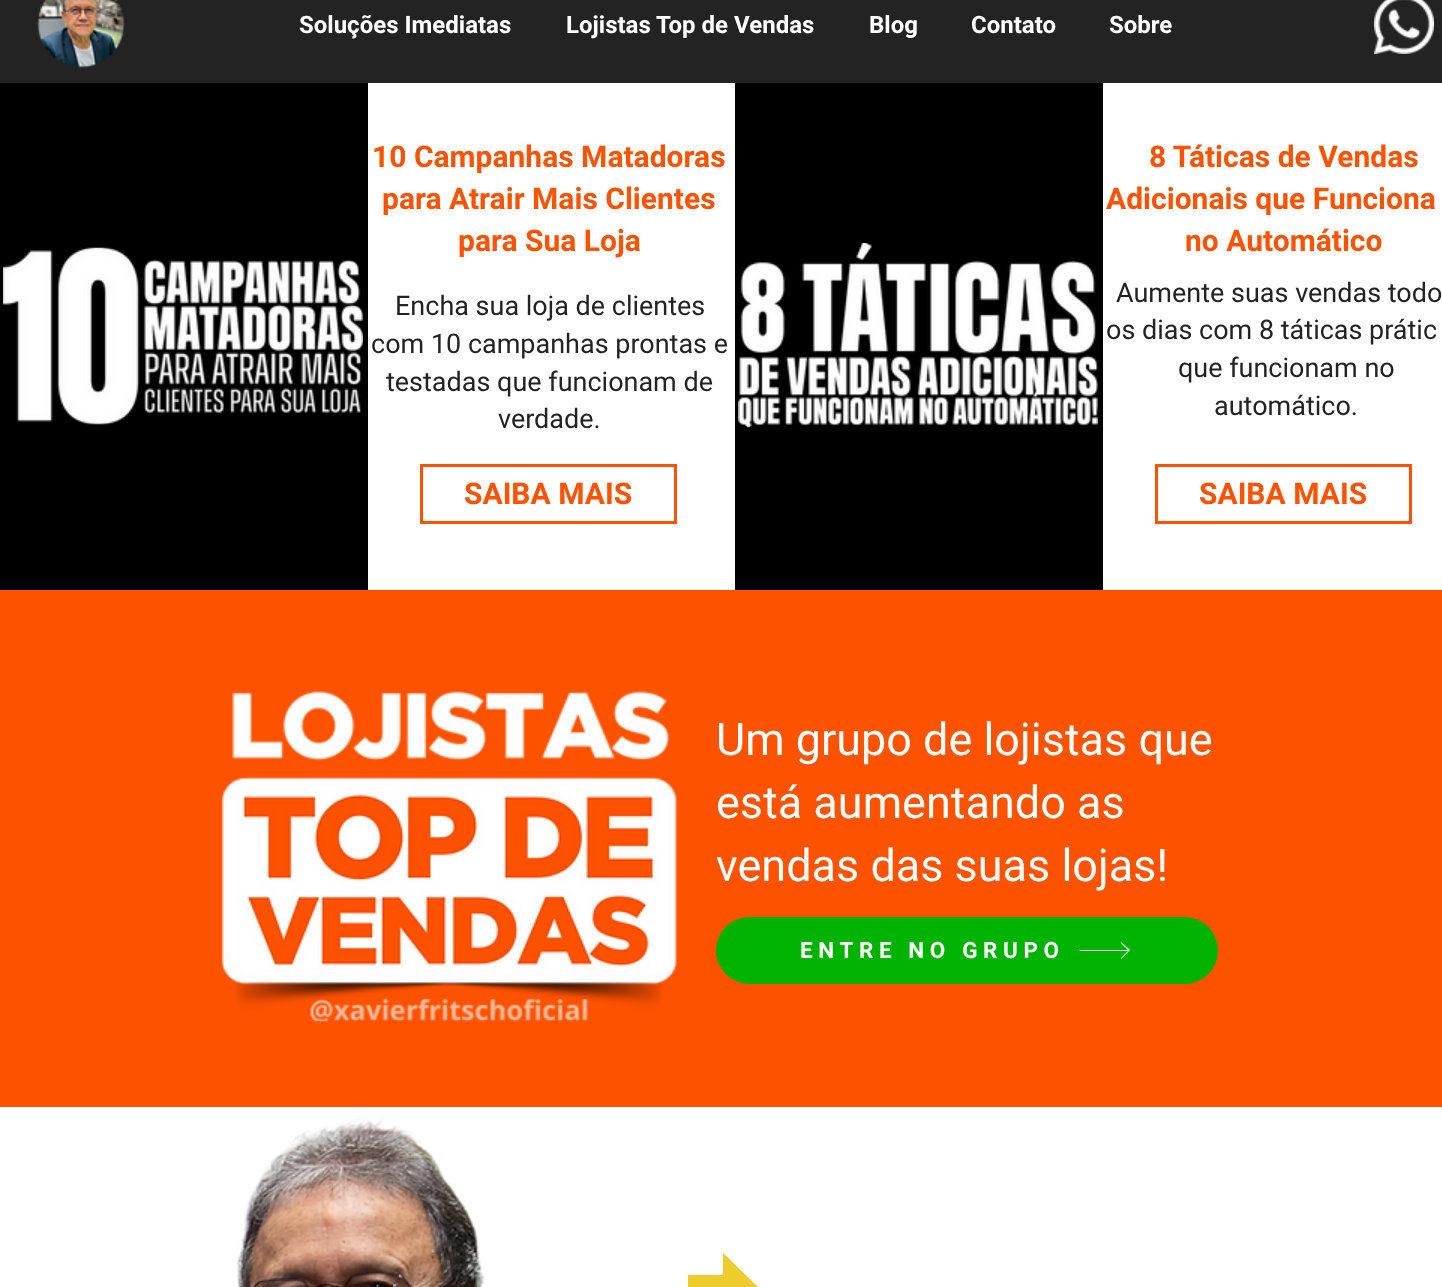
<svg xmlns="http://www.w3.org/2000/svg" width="1442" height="1287">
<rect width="100%" height="100%" fill="#fff"/>
<rect width="1442" height="83" fill="#242323"/>
<image x="37" y="0" width="88" height="68" href="media/1.png"/>
<text x="299" y="33" style="font-family:Roboto;font-size:24px;font-weight:bold;fill:#fff">Soluções Imediatas</text>
<text x="566" y="33" style="font-family:Roboto;font-size:24px;font-weight:bold;fill:#fff">Lojistas Top de Vendas</text>
<text x="869" y="33" style="font-family:Roboto;font-size:24px;font-weight:bold;fill:#fff">Blog</text>
<text x="971" y="33" style="font-family:Roboto;font-size:24px;font-weight:bold;fill:#fff">Contato</text>
<text x="1109" y="33" style="font-family:Roboto;font-size:24px;font-weight:bold;fill:#fff">Sobre</text>
<image x="1374" y="0" width="60" height="54" href="media/2.png"/>
<rect y="83" width="368" height="507" fill="#000"/>
<image x="3" y="247" width="360" height="178" href="media/3.png"/>
<text x="372" y="167" style="font-family:Roboto;font-size:30px;font-weight:bold;fill:#fd5200">10 Campanhas Matadoras</text>
<text x="382" y="209" style="font-family:Roboto;font-size:30px;font-weight:bold;fill:#fd5200">para Atrair Mais Clientes</text>
<text x="458" y="251" style="font-family:Roboto;font-size:30px;font-weight:bold;fill:#fd5200">para Sua Loja</text>
<text x="395" y="315" style="font-family:Roboto;font-size:27px;fill:#242323">Encha sua loja de clientes</text>
<text x="371" y="353" style="font-family:Roboto;font-size:27px;fill:#242323">com 10 campanhas prontas e</text>
<text x="386" y="391" style="font-family:Roboto;font-size:27px;fill:#242323">testadas que funcionam de</text>
<text x="498" y="428" style="font-family:Roboto;font-size:27px;fill:#242323">verdade.</text>
<rect x="421.5" y="465.5" width="254" height="57" fill="none" stroke="#fd5200" stroke-width="3"/>
<text x="464" y="504" style="font-family:Roboto;font-size:30px;font-weight:bold;fill:#fd5200">SAIBA MAIS</text>
<rect x="735" y="83" width="368" height="507" fill="#000"/>
<image x="738" y="243" width="360" height="185" href="media/4.png"/>
<text x="1149" y="167" style="font-family:Roboto;font-size:30px;font-weight:bold;fill:#fd5200">8 Táticas de Vendas</text>
<text x="1106" y="209" style="font-family:Roboto;font-size:30px;font-weight:bold;fill:#fd5200">Adicionais que Funciona</text>
<text x="1185" y="251" style="font-family:Roboto;font-size:30px;font-weight:bold;fill:#fd5200">no Automático</text>
<text x="1116" y="302" style="font-family:Roboto;font-size:27px;fill:#242323">Aumente suas vendas todo</text>
<text x="1106" y="339" style="font-family:Roboto;font-size:27px;fill:#242323">os dias com 8 táticas prátic</text>
<text x="1178" y="377" style="font-family:Roboto;font-size:27px;fill:#242323">que funcionam no</text>
<text x="1214" y="415" style="font-family:Roboto;font-size:27px;fill:#242323">automático.</text>
<rect x="1156.5" y="465.5" width="254" height="57" fill="none" stroke="#fd5200" stroke-width="3"/>
<text x="1199" y="504" style="font-family:Roboto;font-size:30px;font-weight:bold;fill:#fd5200">SAIBA MAIS</text>
<rect y="590" width="1442" height="517" fill="#fd5200"/>
<image x="221" y="691" width="456" height="331" href="media/5.png"/>
<text x="716" y="755" style="font-family:Roboto;font-size:45px;fill:#fff">Um grupo de lojistas que</text>
<text x="716" y="818" style="font-family:Roboto;font-size:45px;fill:#fff">está aumentando as</text>
<text x="716" y="881" style="font-family:Roboto;font-size:45px;fill:#fff">vendas das suas lojas!</text>
<rect x="716" y="917" width="502" height="67" rx="33.5" fill="#00b300"/>
<text x="800" y="958" style="font-family:Roboto;font-size:22.5px;font-weight:bold;letter-spacing:5.6px;fill:#fff">ENTRE NO GRUPO</text>
<path d="M1121 942v1l7 7h-49v1h49l-7 7v1l9-9z" fill="#fff"/>
<image x="236" y="1119" width="249" height="168" href="media/6.png"/>
<path d="M688 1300h35v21l35-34l-35-34v22h-35z" fill="#eecc2c" fill-rule="evenodd"/>
</svg>
